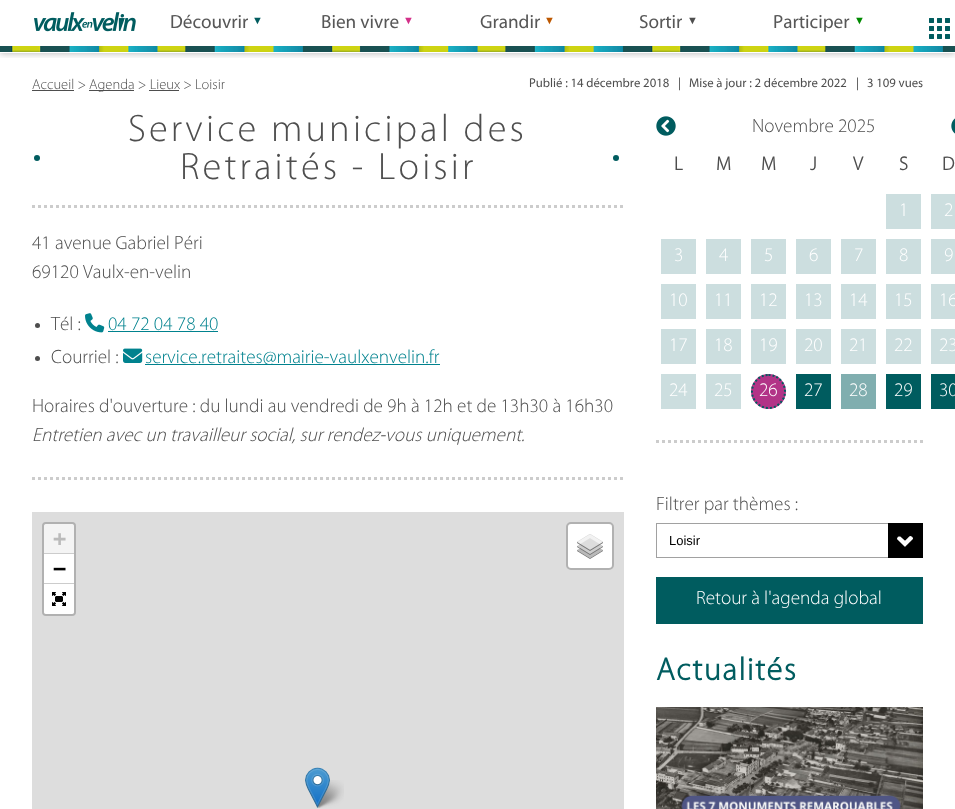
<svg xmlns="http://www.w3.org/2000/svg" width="955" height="809">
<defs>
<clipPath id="clip1"><rect x="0" y="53" width="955" height="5"/></clipPath>
</defs>
<rect width="100%" height="100%" fill="#fff"/>
<g clip-path="url(#clip1)">
<rect y="1" width="955" height="53" fill="#20212447" filter="blur(3px)"/>
</g>
<image x="0" y="46" width="955" height="6" href="media/1.png"/>
<image x="34" y="12" width="102" height="20" href="media/2.png"/>
<text x="170" y="28" style="font-family:'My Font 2';font-size:19.2px;fill:#575757">Découvrir</text>
<text x="252" y="24" style="font-family:Liberation Sans;font-size:11px;font-weight:bold;fill:#005c5f">▼</text>
<text x="321" y="28" style="font-family:'My Font 2';font-size:19.2px;fill:#575757">Bien vivre</text>
<text x="403" y="24" style="font-family:Liberation Sans;font-size:11px;font-weight:bold;fill:#d33089">▼</text>
<text x="480" y="28" style="font-family:'My Font 2';font-size:19.2px;fill:#575757">Grandir</text>
<text x="544" y="24" style="font-family:Liberation Sans;font-size:11px;font-weight:bold;fill:#bd5800">▼</text>
<text x="639" y="28" style="font-family:'My Font 2';font-size:19.2px;fill:#575757">Sortir</text>
<text x="687" y="24" style="font-family:Liberation Sans;font-size:11px;font-weight:bold;fill:#4e4e4e">▼</text>
<text x="773" y="28" style="font-family:'My Font 2';font-size:19.2px;fill:#575757">Participer</text>
<text x="854" y="24" style="font-family:Liberation Sans;font-size:11px;font-weight:bold;fill:#008a00">▼</text>
<image x="929" y="18" width="21" height="21" href="media/3.png"/>
<text x="32" y="89" style="font-family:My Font;font-size:14.5px;fill:#4e4e4e">Accueil &gt;</text>
<rect x="32" y="90" width="42" height="1" fill="#4e4e4e"/>
<rect x="89" y="90" width="45" height="1" fill="#4e4e4e"/>
<text x="89" y="89" style="font-family:My Font;font-size:14.5px;fill:#4e4e4e">Agenda &gt; Lieux &gt; Loisir</text>
<rect x="149" y="90" width="30" height="1" fill="#4e4e4e"/>
<text x="529" y="87" style="font-family:'My Font 2';font-size:12.75px;fill:#4e4e4e">Publié : 14 décembre 2018</text>
<text x="678" y="87" style="font-family:'My Font 2';font-size:12.75px;fill:#4e4e4e">|</text>
<text x="689" y="87" style="font-family:'My Font 2';font-size:12.75px;fill:#4e4e4e">Mise à jour : 2 décembre 2022</text>
<text x="856" y="87" style="font-family:'My Font 2';font-size:12.75px;fill:#4e4e4e">|</text>
<text x="867" y="87" style="font-family:'My Font 2';font-size:12.75px;fill:#4e4e4e">3 109 vues</text>
<circle cx="616" cy="158" r="3" fill="#005c5f"/>
<circle cx="37" cy="158" r="3" fill="#005c5f"/>
<path d="M32 206.5h592" fill="none" stroke="#ccc" stroke-width="3" stroke-dasharray="3 3"/>
<text x="128" y="141" style="font-family:My Font;font-size:38.4px;letter-spacing:3.2px;fill:#4e4e4e">Service municipal des</text>
<text x="180" y="179" style="font-family:My Font;font-size:38.4px;letter-spacing:3.2px;fill:#4e4e4e">Retraités - Loisir</text>
<text x="32" y="249" style="font-family:My Font;font-size:19.2px;fill:#4e4e4e">41 avenue Gabriel Péri</text>
<text x="32" y="278" style="font-family:My Font;font-size:19.2px;fill:#4e4e4e">69120 Vaulx-en-velin</text>
<circle cx="37.5" cy="325.5" r="2.5" fill="#4e4e4e"/>
<text x="51" y="330" style="font-family:My Font;font-size:19.2px;fill:#4e4e4e">Tél :</text>
<image x="85" y="313" width="20" height="20" href="media/4.png"/>
<text x="108" y="330" style="font-family:My Font;font-size:19.2px;fill:#00828e">04 72 04 78 40</text>
<rect x="108" y="331" width="110" height="1" fill="#00828e"/>
<circle cx="37.5" cy="358.5" r="2.5" fill="#4e4e4e"/>
<text x="51" y="363" style="font-family:My Font;font-size:19.2px;fill:#4e4e4e">Courriel :</text>
<image x="123" y="348" width="20" height="15" href="media/5.png"/>
<rect x="145" y="364" width="295" height="1" fill="#00828e"/>
<text x="145" y="363" style="font-family:My Font;font-size:19.2px;fill:#00828e">service.retraites@mairie-vaulxenvelin.fr</text>
<text x="32" y="412" style="font-family:My Font;font-size:19.2px;fill:#4e4e4e">Horaires d'ouverture : du lundi au vendredi de 9h à 12h et de 13h30 à 16h30</text>
<text x="32" y="441" style="font-family:My Font;font-size:19.2px;font-style:italic;fill:#4e4e4e">Entretien avec un travailleur social, sur rendez-vous uniquement.</text>
<path d="M32 478.5h592" fill="none" stroke="#ccc" stroke-width="3" stroke-dasharray="3 3"/>
<rect x="32" y="512" width="592" height="297" fill="#ddd"/>
<rect x="43" y="523" width="32" height="92" rx="3" fill="none" stroke="#b1b1b1" stroke-width="2"/>
<path d="M46 524h26c1 0 2 1 2 2v28h-30v-28c0-1 1-2 2-2z" fill="#f4f4f4"/>
<rect x="44" y="553" width="30" height="1" fill="#ccc"/>
<text x="53" y="546" style="font-family:DejaVu Sans Mono;font-size:22px;font-weight:bold;fill:#bbb">+</text>
<rect x="44" y="554" width="30" height="29" fill="#fff"/>
<rect x="44" y="583" width="30" height="1" fill="#ccc"/>
<text x="53" y="576" style="font-family:DejaVu Sans Mono;font-size:22px;font-weight:bold;fill:#000">−</text>
<path d="M44 584h30v28c0 1-1 2-2 2h-26c-1 0-2-1-2-2z" fill="#fff"/>
<image x="52" y="592" width="14" height="14" href="media/6.png"/>
<rect x="567" y="523" width="46" height="46" rx="4" fill="#fff" stroke="#b1b1b1" stroke-width="2"/>
<image x="577" y="534" width="26" height="25" href="media/7.png"/>
<image x="315" y="780" width="29" height="28" href="media/9.png"/>
<image x="305" y="767" width="25" height="41" href="media/8.png"/>
<image x="656" y="116" width="20" height="20" href="media/10.png"/>
<text x="752" y="132" style="font-family:My Font;font-size:19.2px;fill:#4e4e4e">Novembre 2025</text>
<image x="951" y="118" width="4" height="16" href="media/11.png"/>
<text x="674" y="170" style="font-family:My Font;font-size:19.2px;font-weight:bold;fill:#4e4e4e">L</text>
<text x="716" y="170" style="font-family:My Font;font-size:19.2px;font-weight:bold;fill:#4e4e4e">M</text>
<text x="761" y="170" style="font-family:My Font;font-size:19.2px;font-weight:bold;fill:#4e4e4e">M</text>
<text x="810" y="170" style="font-family:My Font;font-size:19.2px;font-weight:bold;fill:#4e4e4e">J</text>
<text x="853" y="170" style="font-family:My Font;font-size:19.2px;font-weight:bold;fill:#4e4e4e">V</text>
<text x="899" y="170" style="font-family:My Font;font-size:19.2px;font-weight:bold;fill:#4e4e4e">S</text>
<text x="942" y="170" style="font-family:My Font;font-size:19.2px;font-weight:bold;fill:#4e4e4e">D</text>
<rect x="886" y="194" width="35" height="35" fill="#ccdedf"/>
<text x="899" y="216" style="font-family:My Font;font-size:19.2px;fill:#fff">1</text>
<rect x="931" y="194" width="24" height="35" fill="#ccdedf"/>
<text x="944" y="216" style="font-family:My Font;font-size:19.2px;fill:#fff">2</text>
<rect x="661" y="239" width="35" height="35" fill="#ccdedf"/>
<text x="674" y="261" style="font-family:My Font;font-size:19.2px;fill:#fff">3</text>
<rect x="706" y="239" width="35" height="35" fill="#ccdedf"/>
<text x="719" y="261" style="font-family:My Font;font-size:19.2px;fill:#fff">4</text>
<rect x="751" y="239" width="35" height="35" fill="#ccdedf"/>
<text x="764" y="261" style="font-family:My Font;font-size:19.2px;fill:#fff">5</text>
<rect x="796" y="239" width="35" height="35" fill="#ccdedf"/>
<text x="809" y="261" style="font-family:My Font;font-size:19.2px;fill:#fff">6</text>
<rect x="841" y="239" width="35" height="35" fill="#ccdedf"/>
<text x="854" y="261" style="font-family:My Font;font-size:19.2px;fill:#fff">7</text>
<rect x="886" y="239" width="35" height="35" fill="#ccdedf"/>
<text x="899" y="261" style="font-family:My Font;font-size:19.2px;fill:#fff">8</text>
<rect x="931" y="239" width="24" height="35" fill="#ccdedf"/>
<text x="944" y="261" style="font-family:My Font;font-size:19.2px;fill:#fff">9</text>
<rect x="661" y="284" width="35" height="35" fill="#ccdedf"/>
<text x="669" y="306" style="font-family:My Font;font-size:19.2px;fill:#fff">10</text>
<rect x="706" y="284" width="35" height="35" fill="#ccdedf"/>
<text x="714" y="306" style="font-family:My Font;font-size:19.2px;fill:#fff">11</text>
<rect x="751" y="284" width="35" height="35" fill="#ccdedf"/>
<text x="759" y="306" style="font-family:My Font;font-size:19.2px;fill:#fff">12</text>
<rect x="796" y="284" width="35" height="35" fill="#ccdedf"/>
<text x="804" y="306" style="font-family:My Font;font-size:19.2px;fill:#fff">13</text>
<rect x="841" y="284" width="35" height="35" fill="#ccdedf"/>
<text x="849" y="306" style="font-family:My Font;font-size:19.2px;fill:#fff">14</text>
<rect x="886" y="284" width="35" height="35" fill="#ccdedf"/>
<text x="894" y="306" style="font-family:My Font;font-size:19.2px;fill:#fff">15</text>
<rect x="931" y="284" width="24" height="35" fill="#ccdedf"/>
<text x="939" y="306" style="font-family:My Font;font-size:19.2px;fill:#fff">16</text>
<rect x="661" y="329" width="35" height="35" fill="#ccdedf"/>
<text x="669" y="351" style="font-family:My Font;font-size:19.2px;fill:#fff">17</text>
<rect x="706" y="329" width="35" height="35" fill="#ccdedf"/>
<text x="714" y="351" style="font-family:My Font;font-size:19.2px;fill:#fff">18</text>
<rect x="751" y="329" width="35" height="35" fill="#ccdedf"/>
<text x="759" y="351" style="font-family:My Font;font-size:19.2px;fill:#fff">19</text>
<rect x="796" y="329" width="35" height="35" fill="#ccdedf"/>
<text x="804" y="351" style="font-family:My Font;font-size:19.2px;fill:#fff">20</text>
<rect x="841" y="329" width="35" height="35" fill="#ccdedf"/>
<text x="849" y="351" style="font-family:My Font;font-size:19.2px;fill:#fff">21</text>
<rect x="886" y="329" width="35" height="35" fill="#ccdedf"/>
<text x="894" y="351" style="font-family:My Font;font-size:19.2px;fill:#fff">22</text>
<rect x="931" y="329" width="24" height="35" fill="#ccdedf"/>
<text x="939" y="351" style="font-family:My Font;font-size:19.2px;fill:#fff">23</text>
<rect x="661" y="374" width="35" height="35" fill="#ccdedf"/>
<text x="669" y="396" style="font-family:My Font;font-size:19.2px;fill:#fff">24</text>
<rect x="706" y="374" width="35" height="35" fill="#ccdedf"/>
<text x="714" y="396" style="font-family:My Font;font-size:19.2px;fill:#fff">25</text>
<circle cx="768.5" cy="391.5" r="17.5" fill="#b23487"/>
<path d="M768.5 375c9 0 16.5 7.5 16.5 16.5c0 9-7.5 16.5-16.5 16.5c-9 0-16.5-7.5-16.5-16.5c0-9 7.5-16.5 16.5-16.5z" fill="none" stroke="#005c5f" stroke-width="2" stroke-dasharray="2 2"/>
<text x="759" y="396" style="font-family:My Font;font-size:19.2px;fill:#fff">26</text>
<rect x="796" y="374" width="35" height="35" fill="#005c5f"/>
<text x="804" y="396" style="font-family:My Font;font-size:19.2px;fill:#fff">27</text>
<rect x="841" y="374" width="35" height="35" fill="#80aeaf"/>
<text x="849" y="396" style="font-family:My Font;font-size:19.2px;fill:#fff">28</text>
<rect x="886" y="374" width="35" height="35" fill="#005c5f"/>
<text x="894" y="396" style="font-family:My Font;font-size:19.2px;fill:#fff">29</text>
<rect x="931" y="374" width="24" height="35" fill="#005c5f"/>
<text x="939" y="396" style="font-family:My Font;font-size:19.2px;fill:#fff">30</text>
<path d="M656 441.5h267" fill="none" stroke="#ccc" stroke-width="3" stroke-dasharray="3 3"/>
<text x="656" y="510" style="font-family:My Font;font-size:19.2px;fill:#4e4e4e">Filtrer par thèmes :</text>
<rect x="656.5" y="523.5" width="266" height="34" fill="none" stroke="#a1a1a1"/>
<text x="669" y="545" style="font-family:Liberation Sans;font-size:13px;fill:#000">Loisir</text>
<rect x="888" y="523" width="35" height="35" fill="#000"/>
<image x="897" y="536" width="16" height="11" href="media/12.png"/>
<rect x="656" y="577" width="267" height="47" fill="#005c5f"/>
<text x="696" y="604" style="font-family:My Font;font-size:19.2px;fill:#fff">Retour à l'agenda global</text>
<text x="656" y="680" style="font-family:My Font;font-size:32px;font-weight:bold;letter-spacing:1.6px;fill:#005c5f">Actualités</text>
<image x="656" y="707" width="267" height="102" href="media/13.png"/>
</svg>
